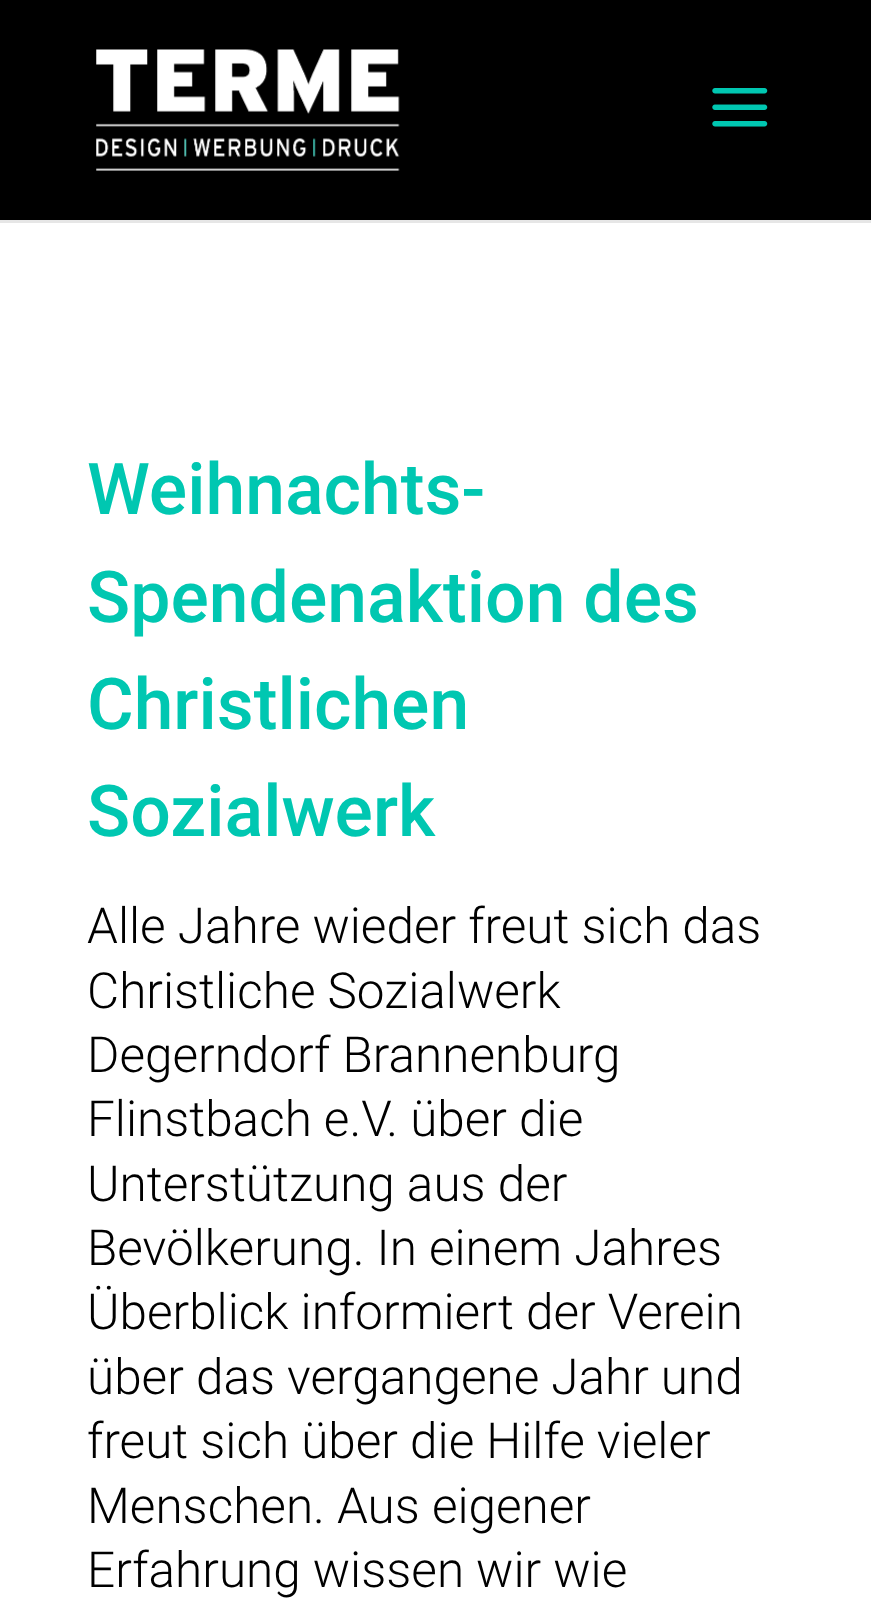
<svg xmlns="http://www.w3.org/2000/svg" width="871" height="1608">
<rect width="100%" height="100%" fill="#fff"/>
<path d="M0 220v3h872v-220v217z" fill="#e6e6e6"/>
<rect width="871" height="220" fill="#000"/>
<image x="96" y="49" width="304" height="122" href="media/1.png"/>
<image x="712" y="88" width="56" height="39" href="media/2.png"/>
<text x="87" y="514" style="font-family:Roboto;font-size:71.5px;font-weight:500;fill:#00c7b1">Weihnachts-</text>
<text x="87" y="622" style="font-family:Roboto;font-size:71.5px;font-weight:500;fill:#00c7b1">Spendenaktion des</text>
<text x="87" y="729" style="font-family:Roboto;font-size:71.5px;font-weight:500;fill:#00c7b1">Christlichen</text>
<text x="87" y="836" style="font-family:Roboto;font-size:71.5px;font-weight:500;fill:#00c7b1">Sozialwerk</text>
<text x="87" y="943" style="font-family:Roboto;font-size:49.5px;font-weight:300;fill:#000">Alle Jahre wieder freut sich das</text>
<text x="87" y="1008" style="font-family:Roboto;font-size:49.5px;font-weight:300;fill:#000">Christliche Sozialwerk</text>
<text x="87" y="1072" style="font-family:Roboto;font-size:49.5px;font-weight:300;fill:#000">Degerndorf Brannenburg</text>
<text x="87" y="1136" style="font-family:Roboto;font-size:49.5px;font-weight:300;fill:#000">Flinstbach e.V. über die</text>
<text x="87" y="1201" style="font-family:Roboto;font-size:49.5px;font-weight:300;fill:#000">Unterstützung aus der</text>
<text x="87" y="1265" style="font-family:Roboto;font-size:49.5px;font-weight:300;fill:#000">Bevölkerung. In einem Jahres</text>
<text x="87" y="1329" style="font-family:Roboto;font-size:49.5px;font-weight:300;fill:#000">Überblick informiert der Verein</text>
<text x="87" y="1394" style="font-family:Roboto;font-size:49.5px;font-weight:300;fill:#000">über das vergangene Jahr und</text>
<text x="87" y="1458" style="font-family:Roboto;font-size:49.5px;font-weight:300;fill:#000">freut sich über die Hilfe vieler</text>
<text x="87" y="1523" style="font-family:Roboto;font-size:49.5px;font-weight:300;fill:#000">Menschen. Aus eigener</text>
<text x="87" y="1587" style="font-family:Roboto;font-size:49.5px;font-weight:300;fill:#000">Erfahrung wissen wir wie</text>
</svg>
